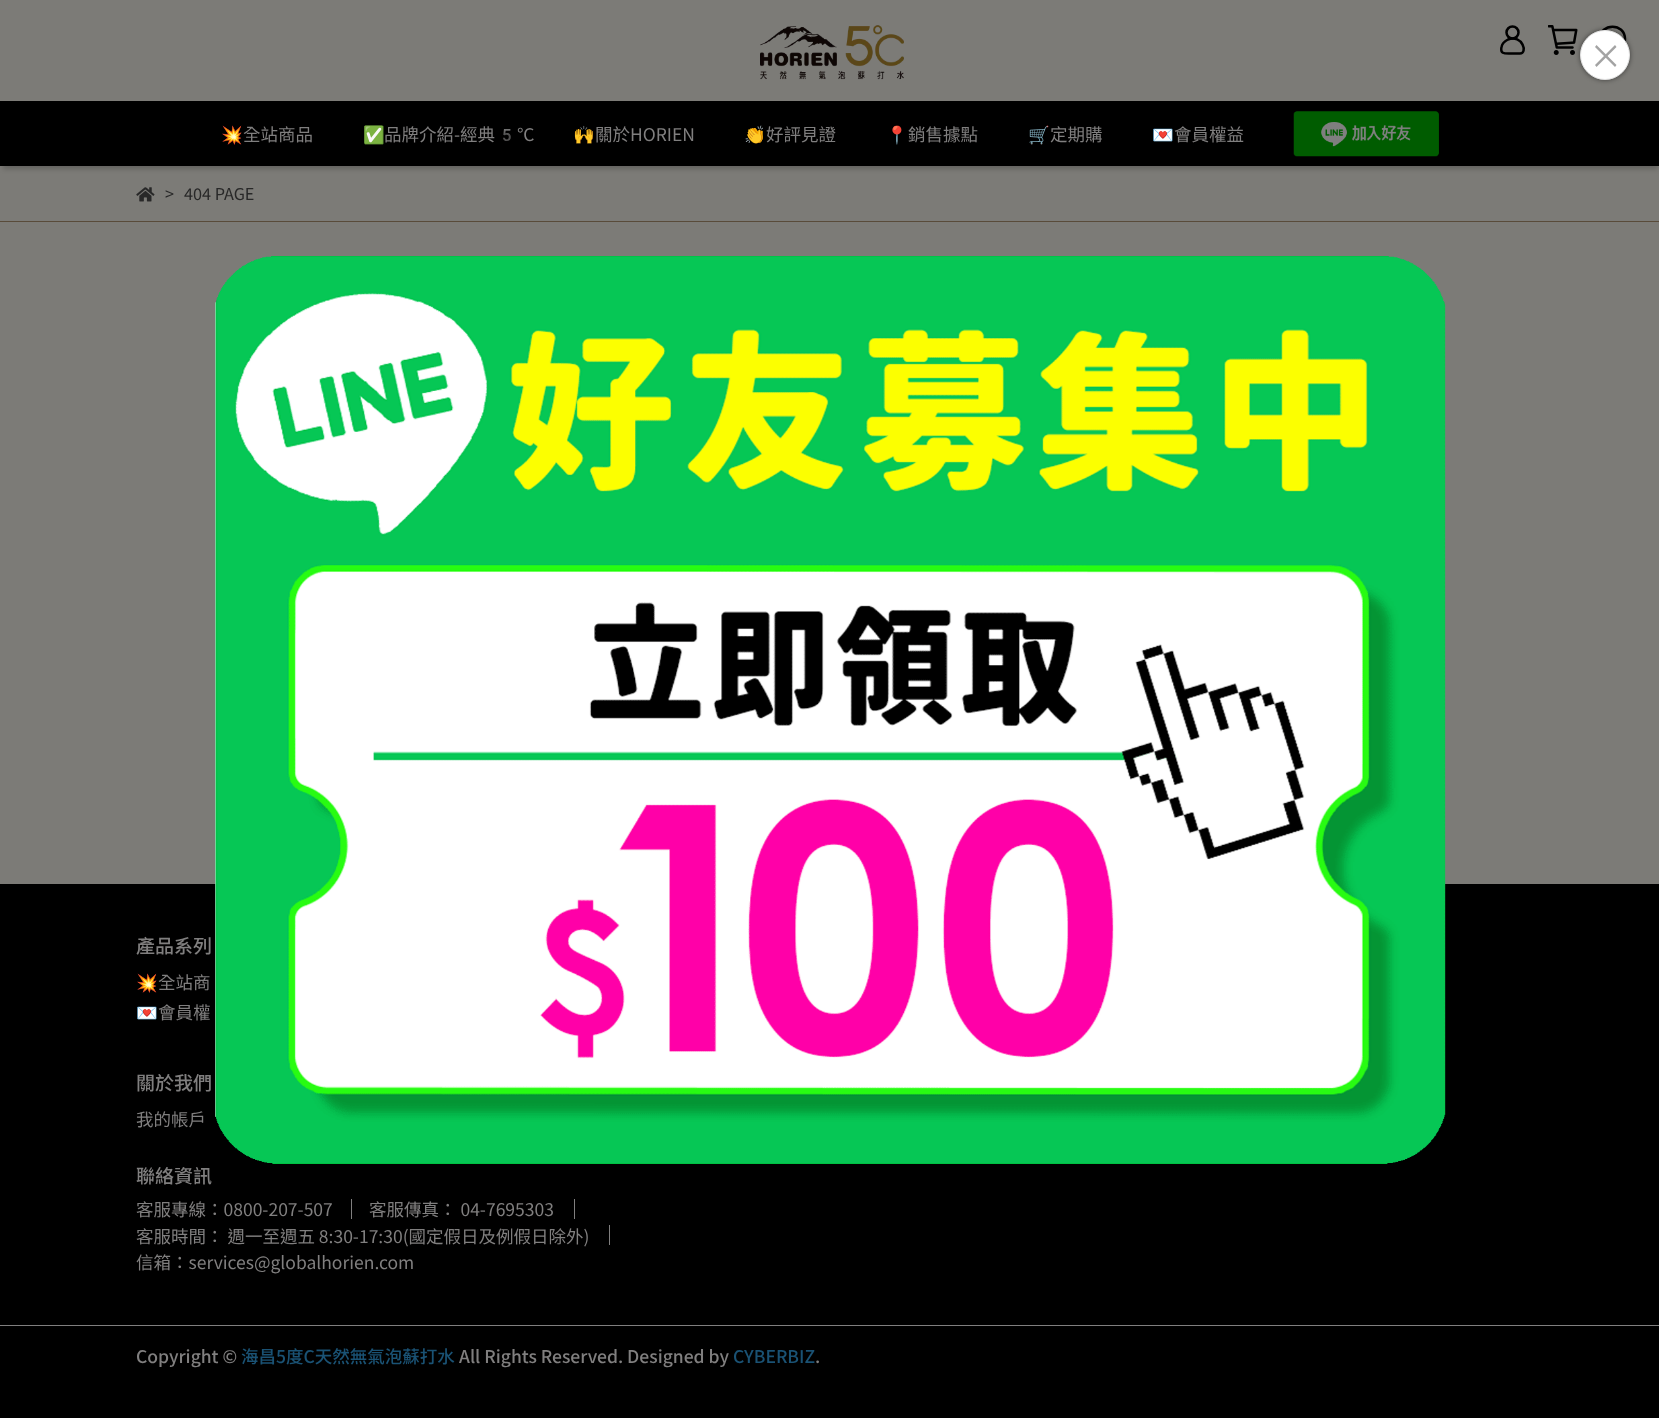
<svg xmlns="http://www.w3.org/2000/svg" width="1659" height="1418">
<rect width="100%" height="100%" fill="#7c7b77"/>
<image x="1548" y="25" width="30" height="30" href="media/3.png"/>
<path d="M1625 39c0 16-25 16-25 0c0-16.5 25-16.5 25 0z" fill="none" stroke="#000" stroke-width="2.5" stroke-linecap="round" stroke-linejoin="round"/>
<rect x="1580" y="30" width="50" height="50" rx="25" fill="#00000080" filter="blur(2.5px)"/>
<circle cx="1605" cy="55" r="24.5" fill="#fff" stroke="#e2e2e2"/>
<path d="M1596.5 45l20 20l-1.5 2l-20-20z" fill="#a3a3a3"/>
<path d="M1595 65l20-20l1.5 2l-20 20z" fill="#a3a3a3"/>
<rect y="884" width="1659" height="534" fill="#000"/>
<image x="215" y="256" width="1231" height="908" href="media/1.png"/>
<image x="760" y="25" width="144" height="55" href="media/2.png"/>
<circle cx="1512.5" cy="32.5" r="6" fill="none" stroke="#000" stroke-width="2.5"/>
<path d="M1519.5 53.5h-9.5c-5.5 0-10 .5-8.5-6.5c.5-3.5 3.5-6 6.5-7.5c14.5-5.5 20.5 14.5 11.5 14z" fill="none" stroke="#000" stroke-width="2.5"/>
<rect x="3" y="109" width="1655" height="60" fill="#00000033" filter="blur(2.5px)"/>
<rect y="101" width="1659" height="65" fill="#000"/>
<text x="221" y="141" style="font-family:Noto Color Emoji;font-size:17.5px;fill:#807f7f">💥</text>
<text x="243" y="141" style="font-family:Noto Sans TC;font-size:17.5px;fill:#807f7f">全站商品</text>
<text x="363" y="141" style="font-family:Noto Color Emoji;font-size:17.5px;fill:#807f7f">✅</text>
<text x="384" y="141" style="font-family:Noto Sans TC;font-size:17.5px;fill:#807f7f">品牌介紹-經典</text>
<text x="496" y="141" style="font-family:Noto Color Emoji;font-size:17.5px;fill:#807f7f">5</text>
<text x="517" y="141" style="font-family:Noto Sans TC;font-size:17.5px;fill:#807f7f">℃</text>
<text x="573" y="141" style="font-family:Noto Color Emoji;font-size:17.5px;fill:#807f7f">🙌</text>
<text x="595" y="141" style="font-family:Noto Sans TC;font-size:17.5px;fill:#807f7f">關於HORIEN</text>
<text x="744" y="141" style="font-family:Noto Color Emoji;font-size:17.5px;fill:#807f7f">👏</text>
<text x="766" y="141" style="font-family:Noto Sans TC;font-size:17.5px;fill:#807f7f">好評見證</text>
<text x="886" y="141" style="font-family:Noto Color Emoji;font-size:17.5px;fill:#807f7f">📍</text>
<text x="908" y="141" style="font-family:Noto Sans TC;font-size:17.5px;fill:#807f7f">銷售據點</text>
<text x="1028" y="141" style="font-family:Noto Color Emoji;font-size:17.5px;fill:#807f7f">🛒</text>
<text x="1050" y="141" style="font-family:Noto Sans TC;font-size:17.5px;fill:#807f7f">定期購</text>
<text x="1152" y="141" style="font-family:Noto Color Emoji;font-size:17.5px;fill:#807f7f">💌</text>
<text x="1174" y="141" style="font-family:Noto Sans TC;font-size:17.5px;fill:#807f7f">會員權益</text>
<image x="1293" y="111" width="146" height="46" href="media/4.png"/>
<rect y="221" width="1659" height="1" fill="#594b3a"/>
<image x="136" y="187" width="19" height="15" href="media/5.png"/>
<text x="165" y="200" style="font-family:Noto Sans TC;font-size:16.25px;fill:#282828">&gt;</text>
<text x="184" y="200" style="font-family:Noto Sans TC;font-size:16.25px;fill:#282828">404 PAGE</text>
<text x="136" y="953" style="font-family:Noto Sans TC;font-size:19px;font-weight:500;fill:#807f7f">產品系列</text>
<text x="136" y="989" style="font-family:Noto Color Emoji;font-size:17.5px;fill:#807f7f">💥</text>
<text x="158" y="989" style="font-family:Noto Sans TC;font-size:17.5px;fill:#807f7f">全站商</text>
<text x="136" y="1019" style="font-family:Noto Color Emoji;font-size:17.5px;fill:#807f7f">💌</text>
<text x="158" y="1019" style="font-family:Noto Sans TC;font-size:17.5px;fill:#807f7f">會員權</text>
<text x="136" y="1090" style="font-family:Noto Sans TC;font-size:19px;font-weight:500;fill:#807f7f">關於我們</text>
<text x="136" y="1126" style="font-family:Noto Sans TC;font-size:17.5px;fill:#807f7f">我的帳戶</text>
<text x="136" y="1183" style="font-family:Noto Sans TC;font-size:19px;font-weight:500;fill:#807f7f">聯絡資訊</text>
<rect x="351" y="1199" width="1" height="20" fill="#807f7f"/>
<text x="136" y="1216" style="font-family:Noto Sans TC;font-size:17.5px;fill:#807f7f">客服專線：0800-207-507</text>
<rect x="574" y="1199" width="1" height="20" fill="#807f7f"/>
<text x="369" y="1216" style="font-family:Noto Sans TC;font-size:17.5px;fill:#807f7f">客服傳真： 04-7695303</text>
<rect x="609" y="1225" width="1" height="20" fill="#807f7f"/>
<text x="136" y="1243" style="font-family:Noto Sans TC;font-size:17.5px;fill:#807f7f">客服時間： 週一至週五 8:30-17:30(國定假日及例假日除外)</text>
<text x="136" y="1269" style="font-family:Noto Sans TC;font-size:17.5px;fill:#807f7f">信箱：services@globalhorien.com</text>
<rect y="1325" width="1659" height="1" fill="#807f7f"/>
<text x="136" y="1363" style="font-family:Noto Sans TC;font-size:17.5px;font-weight:500;fill:#807f7f">Copyright ©</text>
<text x="241" y="1363" style="font-family:Noto Sans TC;font-size:17.5px;font-weight:500;fill:#1a5274">海昌5度C天然無氣泡蘇打水</text>
<text x="459" y="1363" style="font-family:Noto Sans TC;font-size:17.5px;font-weight:500;fill:#807f7f">All Rights Reserved. Designed by</text>
<text x="733" y="1363" style="font-family:Noto Sans TC;font-size:17.5px;font-weight:500;fill:#1a5274">CYBERBIZ</text>
<text x="815" y="1363" style="font-family:Noto Sans TC;font-size:17.5px;font-weight:500;fill:#807f7f">.</text>
</svg>
